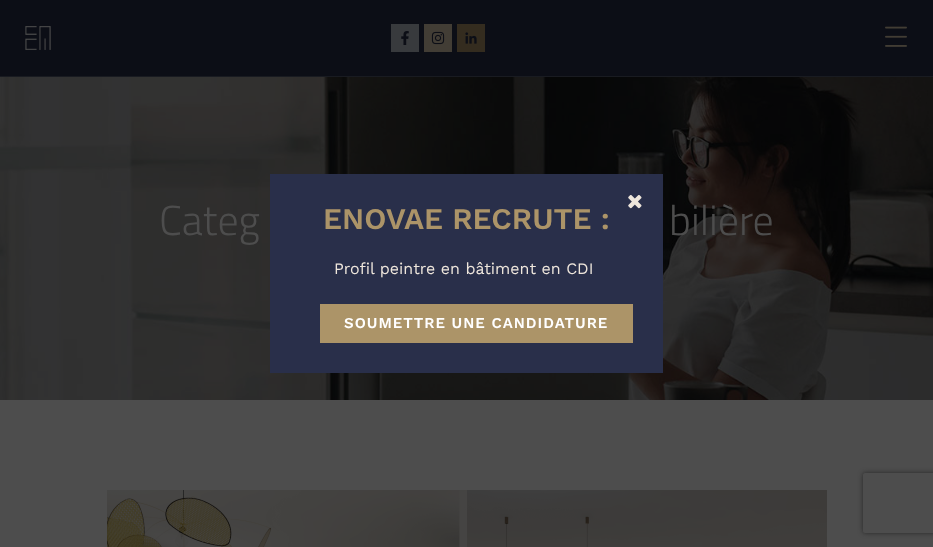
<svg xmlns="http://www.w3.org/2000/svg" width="933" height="547">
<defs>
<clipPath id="clip1"><path d="M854 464h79v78h-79zm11 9h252c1 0 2 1 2 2v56c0 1-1 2-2 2h-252c-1 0-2-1-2-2v-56c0-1 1-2 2-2z" clip-rule="evenodd"/></clipPath>
</defs>
<rect width="100%" height="100%" fill="#4d4d4d"/>
<rect width="933" height="76" fill="#0c0e16"/>
<rect y="76" width="933" height="1" fill="#191b21"/>
<image x="25" y="26" width="26" height="24" href="media/1.png"/>
<rect x="391" y="24" width="28" height="28" fill="#383a3d"/>
<image x="401" y="31" width="8" height="14" href="media/2.png"/>
<rect x="424" y="24" width="28" height="28" fill="#423d35"/>
<image x="431" y="31" width="14" height="14" href="media/3.png"/>
<rect x="457" y="24" width="28" height="28" fill="#342c1f"/>
<image x="465" y="32" width="12" height="12" href="media/4.png"/>
<image x="885" y="26" width="22" height="21" href="media/5.png"/>
<image x="0" y="77" width="933" height="323" href="media/6.png"/>
<text x="159" y="235" style="font-family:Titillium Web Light;font-size:42px;font-weight:300;fill:#4d4d4d">Categ</text>
<text x="669" y="235" style="font-family:Titillium Web Light;font-size:42px;font-weight:300;fill:#4d4d4d">bilière</text>
<image x="107" y="490" width="360" height="57" href="media/7.png"/>
<image x="467" y="490" width="360" height="57" href="media/8.png"/>
<rect x="270" y="174" width="393" height="199" fill="#292f4a"/>
<image x="628" y="195" width="14" height="14" href="media/9.png"/>
<text x="323" y="229" style="font-family:Work Sans;font-size:30px;font-weight:600;fill:#ac9468">ENOVAE RECRUTE :</text>
<text x="334" y="274" style="font-family:Work Sans;font-size:16px;fill:#eee6dc">Profil peintre en bâtiment en CDI</text>
<rect x="320" y="304" width="313" height="39" fill="#ac9468"/>
<text x="344" y="328" style="font-family:Work Sans;font-size:15px;font-weight:600;letter-spacing:1px;fill:#fff">SOUMETTRE UNE CANDIDATURE</text>
<g clip-path="url(#clip1)">
<rect x="863" y="473" width="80" height="60" rx="2" fill="#262626" filter="blur(2.5px)"/>
</g>
</svg>
